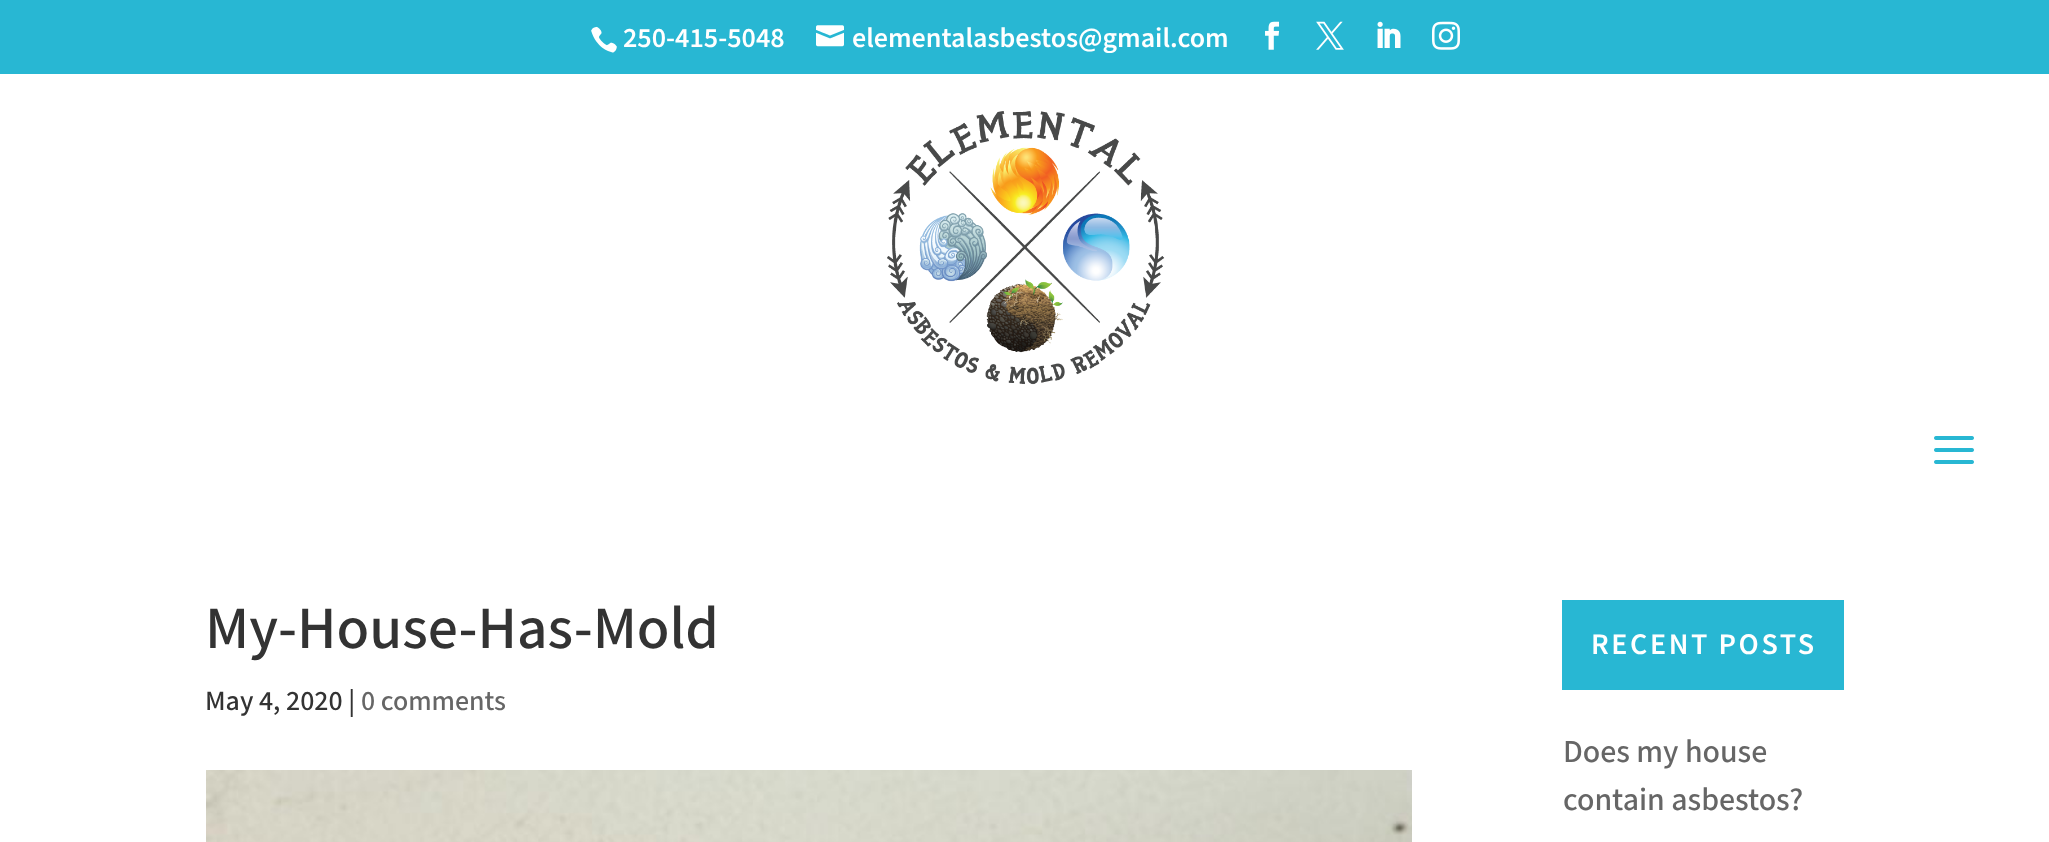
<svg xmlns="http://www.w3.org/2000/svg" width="2049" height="842">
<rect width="100%" height="100%" fill="#fff"/>
<rect width="2049" height="74" fill="#28b7d3"/>
<image x="591" y="26" width="26" height="27" href="media/1.png"/>
<text x="623" y="47" style="font-family:Mada;font-size:28px;font-weight:600;fill:#fff">250-415-5048</text>
<image x="816" y="25" width="28" height="22" href="media/2.png"/>
<text x="852" y="47" style="font-family:Mada;font-size:28px;font-weight:600;fill:#fff">elementalasbestos@gmail.com</text>
<image x="1265" y="21" width="15" height="29" href="media/3.png"/>
<image x="1316" y="21" width="28" height="29" href="media/4.png"/>
<image x="1377" y="21" width="24" height="27" href="media/5.png"/>
<image x="1432" y="21" width="28" height="29" href="media/6.png"/>
<image x="887" y="111" width="278" height="274" href="media/7.png"/>
<image x="1934" y="436" width="40" height="28" href="media/8.png"/>
<text x="205" y="648" style="font-family:Mada;font-size:60px;font-weight:500;fill:#333">My-House-Has-Mold</text>
<text x="205" y="710" style="font-family:Mada;font-size:28px;font-weight:500;fill:#333">May 4, 2020 |</text>
<text x="361" y="710" style="font-family:Mada;font-size:28px;font-weight:500;fill:#666">0 comments</text>
<image x="206" y="770" width="1206" height="72" href="media/9.png"/>
<rect x="1562" y="600" width="282" height="90" fill="#28b7d3"/>
<text x="1591" y="654" style="font-family:Mada;font-size:30px;font-weight:600;letter-spacing:2.6px;fill:#fff">RECENT POSTS</text>
<text x="1563" y="762" style="font-family:Mada;font-size:32px;font-weight:500;fill:#666">Does my house</text>
<text x="1563" y="810" style="font-family:Mada;font-size:32px;font-weight:500;fill:#666">contain asbestos?</text>
</svg>
